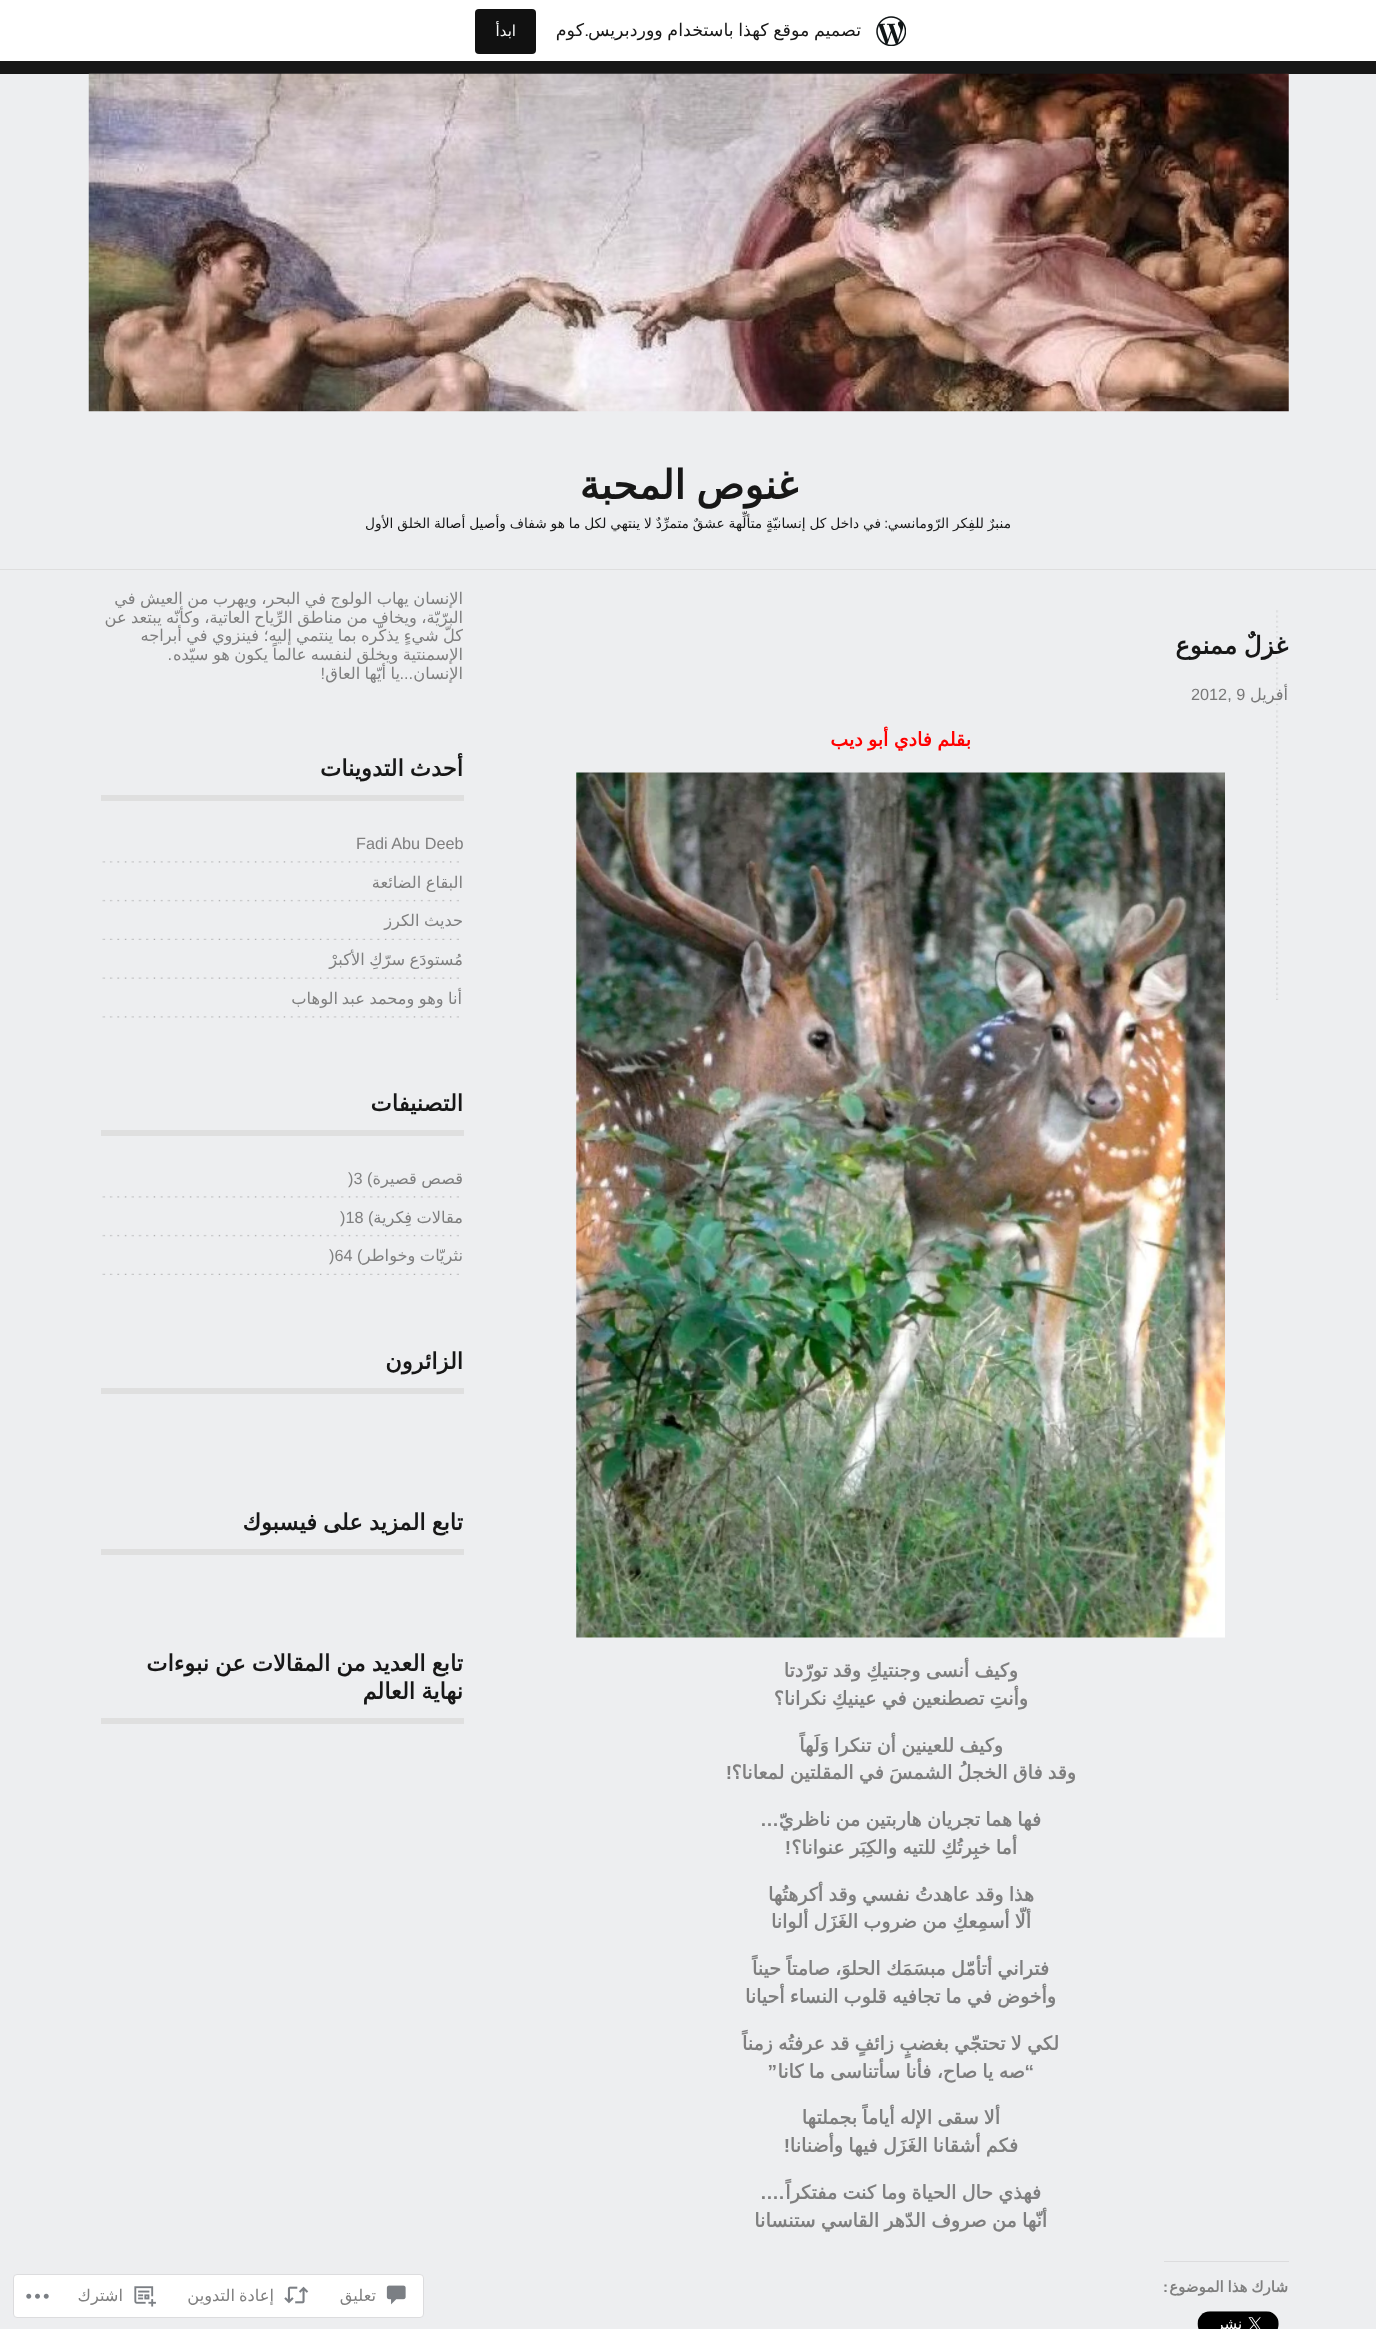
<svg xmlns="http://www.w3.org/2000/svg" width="1376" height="2329">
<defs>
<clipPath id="clip1"><rect x="101" y="589" width="363" height="1474"/></clipPath>
<clipPath id="clip2"><rect x="101" y="1628" width="363" height="385"/></clipPath>
</defs>
<rect width="100%" height="100%" fill="#edeef0"/>
<rect width="1376" height="61" fill="#fff"/>
<image x="876" y="16" width="30" height="30" href="media/1.png"/>
<text x="861" y="36" word-spacing="-1" style="font-family:DejaVu Sans;font-size:17.5px;direction:rtl;fill:#171717">تصميم موقع كهذا باستخدام ووردبريس</text>
<text x="589" y="36" style="font-family:Roboto;font-size:17.5px;direction:rtl;fill:#171717">.</text>
<text x="584" y="36" style="font-family:DejaVu Sans;font-size:17.5px;direction:rtl;fill:#171717">كوم</text>
<rect x="475" y="9" width="61" height="45" rx="4" fill="#111"/>
<text x="516" y="36" style="font-family:DejaVu Sans;font-size:15px;direction:rtl;fill:#f6f7f7">ابدأ</text>
<rect x="13.5" y="2274.5" width="410" height="43" rx="3.5" fill="#fff" stroke="#dcdcde"/>
<image x="386" y="2285" width="20" height="20" href="media/2.png"/>
<text x="376" y="2301" style="font-family:DejaVu Sans;font-size:16.25px;direction:rtl;fill:#7f7f7f">تعليق</text>
<image x="284" y="2286" width="25" height="18" href="media/3.png"/>
<text x="274" y="2301" word-spacing="-1" style="font-family:DejaVu Sans;font-size:16.25px;direction:rtl;fill:#7f7f7f">إعادة التدوين</text>
<image x="134" y="2286" width="22" height="21" href="media/4.png"/>
<text x="123" y="2301" style="font-family:DejaVu Sans;font-size:16.25px;direction:rtl;fill:#7f7f7f">اشترك</text>
<image x="26" y="2293" width="23" height="6" href="media/5.png"/>
<rect y="61" width="1376" height="13" fill="#171717"/>
<rect y="569" width="1376" height="1" fill="#dedede"/>
<image x="88" y="73" width="1201" height="339" href="media/6.png"/>
<text x="798" y="499" word-spacing="-2" style="font-family:DejaVu Sans;font-size:40px;font-weight:bold;direction:rtl;fill:#171717">غنوص المحبة</text>
<text x="1011" y="528" word-spacing="-0.5" style="font-family:DejaVu Sans;font-size:13.75px;direction:rtl;fill:#171717">منبرٌ للفِكر الرّومانسي</text>
<text x="881" y="528" word-spacing="-0.5" style="font-family:DejaVu Sans;font-size:13.75px;direction:rtl;fill:#171717">في داخل كل إنسانيّةٍ متألِّهة عشقٌ متمرِّدٌ لا ينتهي لكل ما هو شفاف وأصيل أصالة الخلق الأول</text>
<text x="888" y="528" style="font-family:Liberation Sans;font-size:13.75px;direction:rtl;fill:#171717">:</text>
<image x="1276" y="610" width="3" height="390" href="media/7.png"/>
<text x="1288" y="654" word-spacing="-1" style="font-family:DejaVu Sans;font-size:24.5px;font-weight:bold;direction:rtl;fill:#171717">غزلٌ ممنوع</text>
<text x="1288" y="700" style="font-family:DejaVu Sans;font-size:16.25px;direction:rtl;fill:#787878">أفريل</text>
<text x="1191" y="700" style="font-family:Liberation Sans;font-size:16.25px;fill:#787878">2012, 9</text>
<text x="971" y="746" word-spacing="-0.75" style="font-family:DejaVu Sans;font-size:19px;font-weight:bold;direction:rtl;fill:#f00">بقلم فادي أبو ديب</text>
<image x="576" y="772" width="649" height="866" href="media/8.png"/>
<text x="1018" y="1677" word-spacing="-0.75" style="font-family:DejaVu Sans;font-size:19px;font-weight:bold;direction:rtl;fill:#7f7f7f">وكيف أنسى وجنتيكِ وقد تورّدتا</text>
<text x="1028" y="1705" word-spacing="-0.75" style="font-family:DejaVu Sans;font-size:19px;font-weight:bold;direction:rtl;fill:#7f7f7f">وأنتِ تصطنعين في عينيكِ نكرانا؟</text>
<text x="1003" y="1752" word-spacing="-0.75" style="font-family:DejaVu Sans;font-size:19px;font-weight:bold;direction:rtl;fill:#7f7f7f">وكيف للعينين أن تنكرا وَلَهاً</text>
<text x="1076" y="1779" word-spacing="-0.75" style="font-family:DejaVu Sans;font-size:19px;font-weight:bold;direction:rtl;fill:#7f7f7f">وقد فاق الخجلُ الشمسَ في المقلتين لمعانا؟</text>
<text x="732" y="1779" style="font-family:Liberation Sans;font-size:19px;font-weight:bold;direction:rtl;fill:#7f7f7f">!</text>
<text x="1041" y="1826" word-spacing="-0.75" style="font-family:DejaVu Sans;font-size:19px;font-weight:bold;direction:rtl;fill:#7f7f7f">فها هما تجريان هاربتين من ناظريّ</text>
<text x="779" y="1826" style="font-family:Liberation Sans;font-size:19px;font-weight:bold;direction:rtl;fill:#7f7f7f">…</text>
<text x="1017" y="1854" word-spacing="-0.75" style="font-family:DejaVu Sans;font-size:19px;font-weight:bold;direction:rtl;fill:#7f7f7f">أما خبِرتُكِ للتيه والكِبَر عنوانا؟</text>
<text x="791" y="1854" style="font-family:Liberation Sans;font-size:19px;font-weight:bold;direction:rtl;fill:#7f7f7f">!</text>
<text x="1034" y="1901" word-spacing="-0.75" style="font-family:DejaVu Sans;font-size:19px;font-weight:bold;direction:rtl;fill:#7f7f7f">هذا وقد عاهدتُ نفسي وقد أكرهتُها</text>
<text x="1031" y="1928" word-spacing="-0.75" style="font-family:DejaVu Sans;font-size:19px;font-weight:bold;direction:rtl;fill:#7f7f7f">ألّا أسمِعكِ من ضروب الغَزَل ألوانا</text>
<text x="1049" y="1975" word-spacing="-0.75" style="font-family:DejaVu Sans;font-size:19px;font-weight:bold;direction:rtl;fill:#7f7f7f">فتراني أتأمّل مبسَمَك الحلوَ، صامتاً حيناً</text>
<text x="1056" y="2003" word-spacing="-0.75" style="font-family:DejaVu Sans;font-size:19px;font-weight:bold;direction:rtl;fill:#7f7f7f">وأخوض في ما تجافيه قلوب النساء أحيانا</text>
<text x="1059" y="2050" word-spacing="-0.75" style="font-family:DejaVu Sans;font-size:19px;font-weight:bold;direction:rtl;fill:#7f7f7f">لكي لا تحتجّي بغضبٍ زائفٍ قد عرفتُه زمناً</text>
<text x="1025" y="2078" word-spacing="-0.75" style="font-family:DejaVu Sans;font-size:19px;font-weight:bold;direction:rtl;fill:#7f7f7f">صه يا صاح، فأنا سأتناسى ما كانا</text>
<text x="1034" y="2078" style="font-family:Liberation Sans;font-size:19px;font-weight:bold;direction:rtl;fill:#7f7f7f">“</text>
<text x="777" y="2078" style="font-family:Liberation Sans;font-size:19px;font-weight:bold;direction:rtl;fill:#7f7f7f">”</text>
<text x="1000" y="2124" word-spacing="-0.75" style="font-family:DejaVu Sans;font-size:19px;font-weight:bold;direction:rtl;fill:#7f7f7f">ألا سقى الإله أياماً بجملتها</text>
<text x="1018" y="2152" word-spacing="-0.75" style="font-family:DejaVu Sans;font-size:19px;font-weight:bold;direction:rtl;fill:#7f7f7f">فكم أشقانا الغَزَل فيها وأضنانا</text>
<text x="790" y="2152" style="font-family:Liberation Sans;font-size:19px;font-weight:bold;direction:rtl;fill:#7f7f7f">!</text>
<text x="1041" y="2199" word-spacing="-0.75" style="font-family:DejaVu Sans;font-size:19px;font-weight:bold;direction:rtl;fill:#7f7f7f">فهذي حال الحياة وما كنت مفتكراً</text>
<text x="785" y="2199" style="font-family:Liberation Sans;font-size:19px;font-weight:bold;direction:rtl;fill:#7f7f7f">….</text>
<text x="1047" y="2227" word-spacing="-0.75" style="font-family:DejaVu Sans;font-size:19px;font-weight:bold;direction:rtl;fill:#7f7f7f">أنّها من صروف الدّهر القاسي ستنسانا</text>
<rect x="1164" y="2261" width="125" height="1" fill="#dcdcde"/>
<text x="1288" y="2292" word-spacing="-1" style="font-family:DejaVu Sans;font-size:15px;font-weight:bold;direction:rtl;fill:#7f7f7f">شارك هذا الموضوع</text>
<text x="1168" y="2292" style="font-family:Liberation Sans;font-size:15px;font-weight:bold;direction:rtl;fill:#7f7f7f">:</text>
<image x="1197" y="2311" width="82" height="18" href="media/9.png"/>
<g clip-path="url(#clip1)">
<text x="463" y="604" word-spacing="-0.75" style="font-family:DejaVu Sans;font-size:16.25px;direction:rtl;fill:#7f7f7f">الإنسان يهاب الولوج في البحر، ويهرب من العيش في</text>
<text x="463" y="623" word-spacing="-0.75" style="font-family:DejaVu Sans;font-size:16.25px;direction:rtl;fill:#7f7f7f">البرّيّة، ويخاف من مناطق الرِّياح العاتية، وكأنّه يبتعد عن</text>
<text x="463" y="641" word-spacing="-0.75" style="font-family:DejaVu Sans;font-size:16.25px;direction:rtl;fill:#7f7f7f">كلّ شيءٍ يذكّره بما ينتمي إليه؛ فينزوي في أبراجه</text>
<text x="463" y="660" word-spacing="-0.75" style="font-family:DejaVu Sans;font-size:16.25px;direction:rtl;fill:#7f7f7f">الإسمنتية ويخلق لنفسه عالماً يكون هو سيّده</text>
</g>
<text x="172" y="660" style="font-family:Liberation Sans;font-size:16.25px;direction:rtl;fill:#7f7f7f">.</text>
<text x="463" y="679" style="font-family:DejaVu Sans;font-size:16.25px;direction:rtl;fill:#7f7f7f">الإنسان</text>
<text x="413" y="679" style="font-family:Liberation Sans;font-size:16.25px;direction:rtl;fill:#7f7f7f">...</text>
<text x="400" y="679" word-spacing="-0.75" style="font-family:DejaVu Sans;font-size:16.25px;direction:rtl;fill:#7f7f7f">يا أيّها العاق</text>
<text x="325" y="679" style="font-family:Liberation Sans;font-size:16.25px;direction:rtl;fill:#7f7f7f">!</text>
<rect x="101" y="795" width="363" height="6" fill="#dfdfdf"/>
<text x="463" y="776" word-spacing="-1" style="font-family:DejaVu Sans;font-size:22.5px;font-weight:bold;direction:rtl;fill:#171717">أحدث التدوينات</text>
<image x="102" y="861" width="357" height="2" href="media/10.png"/>
<text x="356" y="849" style="font-family:Liberation Sans;font-size:16.25px;fill:#7f7f7f">Fadi Abu Deeb</text>
<image x="102" y="899" width="357" height="3" href="media/11.png"/>
<text x="463" y="888" word-spacing="-0.75" style="font-family:DejaVu Sans;font-size:16.25px;direction:rtl;fill:#7f7f7f">البقاع الضائعة</text>
<image x="102" y="938" width="357" height="2" href="media/12.png"/>
<text x="463" y="926" word-spacing="-0.75" style="font-family:DejaVu Sans;font-size:16.25px;direction:rtl;fill:#7f7f7f">حديث الكرز</text>
<image x="102" y="977" width="357" height="2" href="media/13.png"/>
<text x="463" y="965" word-spacing="-0.75" style="font-family:DejaVu Sans;font-size:16.25px;direction:rtl;fill:#7f7f7f">مُستودَع سرّكِ الأكبرْ</text>
<image x="102" y="1016" width="357" height="2" href="media/10.png"/>
<text x="462" y="1004" word-spacing="-0.75" style="font-family:DejaVu Sans;font-size:16.25px;direction:rtl;fill:#7f7f7f">أنا وهو ومحمد عبد</text>
<text x="338" y="1004" style="font-family:DejaVu Sans;font-size:16.25px;direction:rtl;fill:#7f7f7f">الوهاب</text>
<rect x="101" y="1130" width="363" height="6" fill="#dfdfdf"/>
<text x="463" y="1111" style="font-family:DejaVu Sans;font-size:22.5px;font-weight:bold;direction:rtl;fill:#171717">التصنيفات</text>
<image x="102" y="1196" width="357" height="2" href="media/10.png"/>
<text x="463" y="1184" word-spacing="-0.75" style="font-family:DejaVu Sans;font-size:16.25px;direction:rtl;fill:#7f7f7f">قصص قصيرة</text>
<text x="348" y="1184" style="font-family:Liberation Sans;font-size:16.25px;fill:#7f7f7f">)3 (</text>
<image x="102" y="1234" width="357" height="3" href="media/11.png"/>
<text x="463" y="1223" word-spacing="-0.75" style="font-family:DejaVu Sans;font-size:16.25px;direction:rtl;fill:#7f7f7f">مقالات فِكرية</text>
<text x="340" y="1223" style="font-family:Liberation Sans;font-size:16.25px;fill:#7f7f7f">)18 (</text>
<image x="102" y="1273" width="357" height="2" href="media/12.png"/>
<text x="463" y="1261" word-spacing="-0.75" style="font-family:DejaVu Sans;font-size:16.25px;direction:rtl;fill:#7f7f7f">نثريّات وخواطر</text>
<text x="329" y="1261" style="font-family:Liberation Sans;font-size:16.25px;fill:#7f7f7f">)64 (</text>
<rect x="101" y="1388" width="363" height="6" fill="#dfdfdf"/>
<text x="463" y="1369" style="font-family:DejaVu Sans;font-size:22.5px;font-weight:bold;direction:rtl;fill:#171717">الزائرون</text>
<rect x="101" y="1549" width="363" height="6" fill="#dfdfdf"/>
<text x="463" y="1530" word-spacing="-1" style="font-family:DejaVu Sans;font-size:22.5px;font-weight:bold;direction:rtl;fill:#171717">تابع المزيد على فيسبوك</text>
<rect x="101" y="1718" width="363" height="6" fill="#dfdfdf"/>
<g clip-path="url(#clip2)">
<text x="463" y="1671" word-spacing="-1" style="font-family:DejaVu Sans;font-size:22.5px;font-weight:bold;direction:rtl;fill:#171717">تابع العديد من المقالات عن نبوءات</text>
</g>
<text x="463" y="1699" word-spacing="-1" style="font-family:DejaVu Sans;font-size:22.5px;font-weight:bold;direction:rtl;fill:#171717">نهاية العالم</text>
</svg>
